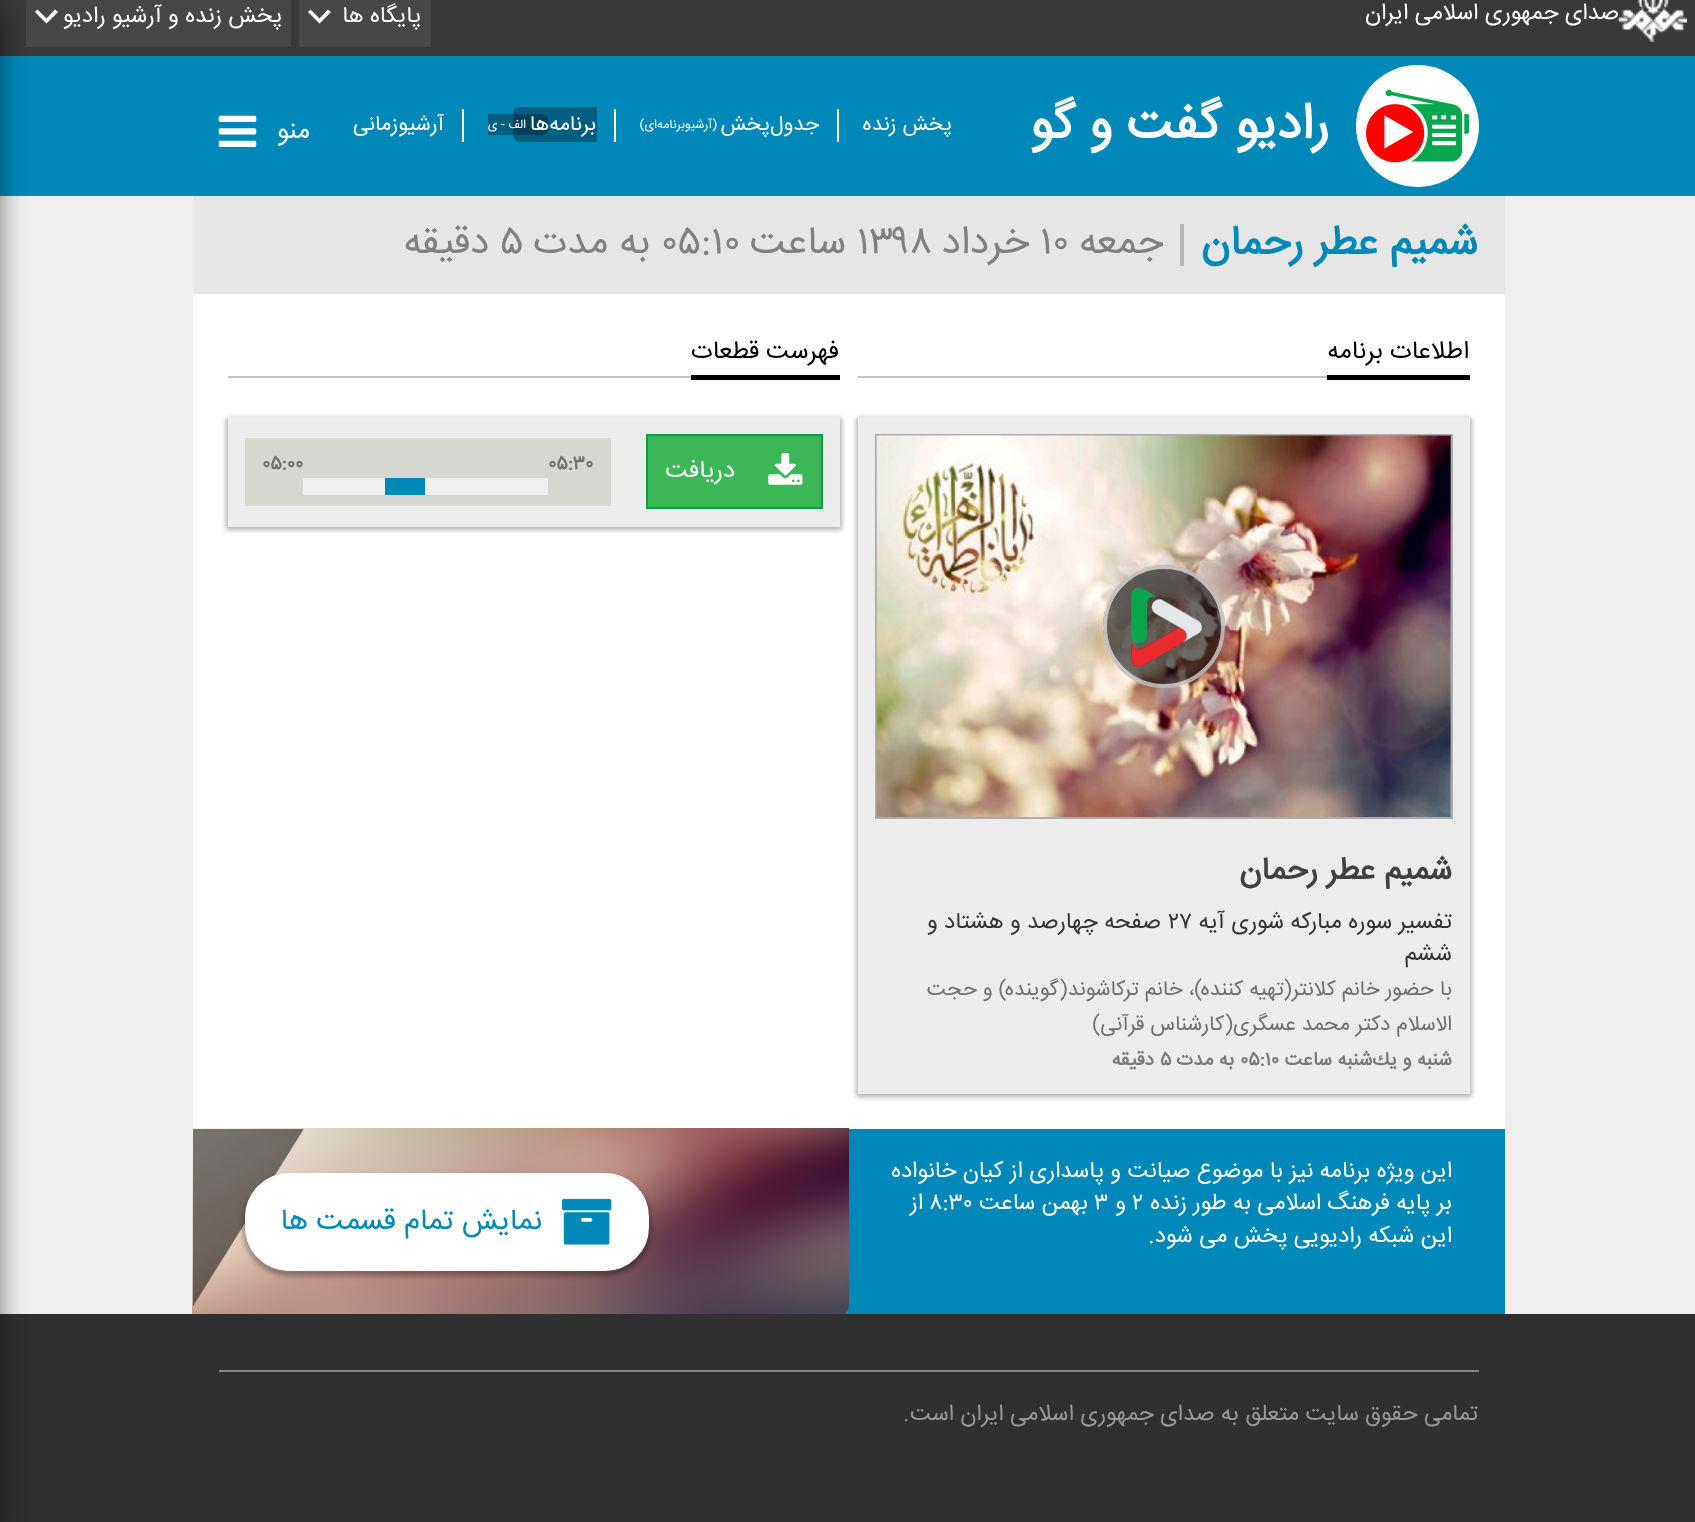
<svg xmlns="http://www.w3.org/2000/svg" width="1695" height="1522">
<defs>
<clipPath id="clip1"><rect x="193" y="1129" width="656" height="185"/></clipPath>
</defs>
<rect width="100%" height="100%" fill="#efefef"/>
<rect width="1695" height="56" fill="#393939"/>
<image x="1618" y="0" width="69" height="42" href="media/1.png"/>
<text x="1619" y="19" style="font-family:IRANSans;font-size:22.75px;direction:rtl;fill:#fff">صدای جمهوری اسلامی ایران</text>
<rect x="299" width="132" height="47" fill="#474747"/>
<text x="421" y="22" style="font-family:IRANSans;font-size:22.75px;direction:rtl;fill:#fff">پایگاه ها</text>
<path d="M331 12l-3-2.5l-8.5 9l-9-9l-2.5 2.5l11.5 11.5z" fill="#fff"/>
<rect x="26" width="265" height="47" fill="#474747"/>
<text x="282" y="22" style="font-family:IRANSans;font-size:22.75px;direction:rtl;fill:#fff">پخش زنده و آرشیو رادیو</text>
<path d="M58 12l-3-2.5l-8.5 9l-9-9l-2.5 2.5l11.5 11.5z" fill="#fff"/>
<rect y="56" width="1695" height="140" fill="#0088b9"/>
<rect y="1314" width="1695" height="208" fill="#303030"/>
<rect x="-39" y="9" width="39" height="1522" fill="#00000080" filter="blur(13px)"/>
<rect x="1356" y="65" width="123" height="122" rx="61" fill="#fff"/>
<image x="1366" y="89" width="103" height="74" href="media/2.png"/>
<text x="1329" y="138" style="font-family:IRANSans;font-size:50px;font-weight:bold;direction:rtl;fill:#fff">رادیو گفت و گو</text>
<text x="952" y="130" style="font-family:IRANSans;font-size:21px;direction:rtl;fill:#fff">پخش زنده</text>
<rect x="837" y="109" width="2" height="33" fill="#fff"/>
<text x="819" y="130" style="font-family:IRANSans;font-size:21px;direction:rtl;fill:#fff">جدول‌پخش</text>
<text x="717" y="128" style="font-family:IRANSans;font-size:12.5px;direction:rtl;fill:#fff">(آرشیو‌برنامه‌ای)</text>
<rect x="614" y="109" width="2" height="33" fill="#fff"/>
<path d="M520 107h77v35h-77c-4 0-7-3-7-7v-21c0-4 3-7 7-7z" fill="#005e80"/>
<path d="M488 114h53c4 0 7 3 7 7v7c0 4-3 7-7 7h-53z" fill="#0000004f"/>
<text x="596" y="130" style="font-family:IRANSans;font-size:21px;direction:rtl;fill:#fff">برنامه‌ها</text>
<text x="526" y="128" style="font-family:IRANSans;font-size:12.5px;direction:rtl;fill:#fff">الف - ی</text>
<rect x="462" y="109" width="2" height="33" fill="#fff"/>
<text x="444" y="130" style="font-family:IRANSans;font-size:21px;direction:rtl;fill:#fff">آرشیوزمانی</text>
<text x="310" y="138" style="font-family:IRANSans;font-size:26px;direction:rtl;fill:#fff">منو</text>
<image x="218" y="115" width="39" height="32" href="media/3.png"/>
<rect x="193" y="196" width="1312" height="98" fill="#e6e6e6"/>
<text x="1478" y="254" style="font-family:IRANSans;font-size:41px;font-weight:bold;direction:rtl;fill:#0088b9">شمیم عطر رحمان</text>
<rect x="1180" y="224" width="4" height="42" fill="#b5b5b5"/>
<text x="1163" y="253" style="font-family:IRANSans;font-size:39px;direction:rtl;fill:#808080">جمعه</text>
<text x="1040" y="253" style="font-family:IRANSans;font-size:39px;fill:#808080">۱۰</text>
<text x="1029" y="253" style="font-family:IRANSans;font-size:39px;direction:rtl;fill:#808080">خرداد</text>
<text x="857" y="253" style="font-family:IRANSans;font-size:39px;fill:#808080">۱۳۹۸</text>
<text x="846" y="253" style="font-family:IRANSans;font-size:39px;direction:rtl;fill:#808080">ساعت</text>
<text x="661" y="253" style="font-family:IRANSans;font-size:39px;fill:#808080">۰۵:۱۰</text>
<text x="650" y="253" style="font-family:IRANSans;font-size:39px;direction:rtl;fill:#808080">به مدت</text>
<text x="500" y="253" style="font-family:IRANSans;font-size:39px;fill:#808080">۵</text>
<text x="489" y="253" style="font-family:IRANSans;font-size:39px;direction:rtl;fill:#808080">دقیقه</text>
<rect x="193" y="294" width="1312" height="835" fill="#fff"/>
<text x="1469" y="358" style="font-family:IRANSans;font-size:25px;direction:rtl;fill:#000">اطلاعات برنامه</text>
<rect x="1327" y="375" width="143" height="5" fill="#000"/>
<rect x="858" y="376" width="469" height="2" fill="#c1c1c1"/>
<rect x="856" y="418" width="616" height="679" fill="#0000004d" filter="blur(2.5px)"/>
<rect x="858" y="417" width="612" height="677" fill="#ececec"/>
<rect x="876" y="435" width="576" height="383" fill="none" stroke="#ababab" stroke-width="2"/>
<image x="876" y="435" width="575" height="382" href="media/4.png"/>
<rect x="1103" y="565" width="122" height="123" rx="61" fill="#08080899"/>
<rect x="1105" y="567" width="118" height="119" rx="59" fill="none" stroke="#ffffffa1" stroke-width="4"/>
<image x="1102" y="587" width="100" height="80" href="media/5.png"/>
<text x="1452" y="879" style="font-family:IRANSans;font-size:31.5px;font-weight:bold;direction:rtl;fill:#404040">شمیم عطر رحمان</text>
<text x="1452" y="928" style="font-family:IRANSans;font-size:22.75px;direction:rtl;fill:#333">تفسیر سوره مباركه شوری آیه</text>
<text x="1168" y="928" style="font-family:IRANSans;font-size:22.75px;fill:#333">۲۷</text>
<text x="1161" y="928" style="font-family:IRANSans;font-size:22.75px;direction:rtl;fill:#333">صفحه چهارصد و هشتاد و</text>
<text x="1452" y="960" style="font-family:IRANSans;font-size:22.75px;direction:rtl;fill:#333">ششم</text>
<text x="1452" y="995" style="font-family:IRANSans;font-size:21px;direction:rtl;fill:#6f6f6f">با حضور خانم كلانتر(تهیه كننده)، خانم تركاشوند(گوینده) و حجت</text>
<text x="1452" y="1030" style="font-family:IRANSans;font-size:21px;direction:rtl;fill:#6f6f6f">الاسلام دكتر محمد عسگری(كارشناس قرآنی)</text>
<text x="1452" y="1065" style="font-family:IRANSans;font-size:19.25px;font-weight:bold;direction:rtl;fill:#797979">شنبه و یك‌شنبه</text>
<text x="1332" y="1065" style="font-family:IRANSans;font-size:19.25px;font-weight:bold;direction:rtl;fill:#797979">ساعت</text>
<text x="1240" y="1065" style="font-family:IRANSans;font-size:19.25px;font-weight:bold;fill:#797979">۰۵:۱۰</text>
<text x="1234" y="1065" style="font-family:IRANSans;font-size:19.25px;font-weight:bold;direction:rtl;fill:#797979">به مدت</text>
<text x="1160" y="1065" style="font-family:IRANSans;font-size:19.25px;font-weight:bold;fill:#797979">۵</text>
<text x="1154" y="1065" style="font-family:IRANSans;font-size:19.25px;font-weight:bold;direction:rtl;fill:#797979">دقیقه</text>
<text x="839" y="358" style="font-family:IRANSans;font-size:25px;direction:rtl;fill:#000">فهرست قطعات</text>
<rect x="691" y="375" width="149" height="5" fill="#000"/>
<rect x="228" y="376" width="463" height="2" fill="#c1c1c1"/>
<rect x="226" y="418" width="616" height="112" fill="#0000004d" filter="blur(2.5px)"/>
<rect x="228" y="417" width="612" height="110" fill="#ececec"/>
<rect x="647" y="435" width="175" height="73" fill="#3cb758" stroke="#0ba03d" stroke-width="2"/>
<image x="768" y="453" width="35" height="32" href="media/6.png"/>
<text x="735" y="477" style="font-family:IRANSans;font-size:24.5px;direction:rtl;fill:#fff">دریافت</text>
<rect x="245" y="438" width="366" height="68" fill="#d7d6d1"/>
<text x="548" y="469" style="font-family:IRANSans;font-size:19.25px;font-weight:bold;fill:#6f6f6f">۰۵:۳۰</text>
<text x="262" y="469" style="font-family:IRANSans;font-size:19.25px;font-weight:bold;fill:#6f6f6f">۰۵:۰۰</text>
<rect x="303" y="478" width="245" height="17" fill="#efefed"/>
<rect x="385" y="478" width="40" height="17" fill="#0088b9"/>
<rect x="845" y="1129" width="660" height="185" fill="#0088b9"/>
<image x="192" y="1128" width="657" height="186" href="media/7.png"/>
<g clip-path="url(#clip1)">
<path d="M-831 1055h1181l-208 333h-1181z" fill="#0c0c0c8c"/>
</g>
<text x="1452" y="1177" style="font-family:IRANSans;font-size:22.75px;direction:rtl;fill:#fff">این ویژه برنامه نیز با موضوع صیانت و پاسداری از كیان خانواده</text>
<text x="1452" y="1209" style="font-family:IRANSans;font-size:22.75px;direction:rtl;fill:#fff">بر پایه فرهنگ اسلامی به طور زنده</text>
<text x="1132" y="1209" style="font-family:IRANSans;font-size:22.75px;fill:#fff">۲</text>
<text x="1126" y="1209" style="font-family:IRANSans;font-size:22.75px;direction:rtl;fill:#fff">و</text>
<text x="1094" y="1209" style="font-family:IRANSans;font-size:22.75px;fill:#fff">۳</text>
<text x="1088" y="1209" style="font-family:IRANSans;font-size:22.75px;direction:rtl;fill:#fff">بهمن ساعت</text>
<text x="929" y="1209" style="font-family:IRANSans;font-size:22.75px;fill:#fff">۸:۳۰</text>
<text x="923" y="1209" style="font-family:IRANSans;font-size:22.75px;direction:rtl;fill:#fff">از</text>
<text x="1452" y="1242" style="font-family:IRANSans;font-size:22.75px;direction:rtl;fill:#fff">این شبكه رادیویی پخش می شود.</text>
<rect x="243" y="1176" width="408" height="100" rx="46" fill="#0000004d" filter="blur(2.5px)"/>
<rect x="247.5" y="1175.5" width="399" height="93" rx="41.5" fill="#fff" stroke="#fff" stroke-width="5"/>
<image x="561" y="1198" width="51" height="47" href="media/8.png"/>
<text x="542" y="1229" style="font-family:IRANSans;font-size:29.5px;direction:rtl;fill:#0088b9">نمایش تمام قسمت ها</text>
<rect x="219" y="1370" width="1260" height="2" fill="#858585"/>
<text x="1478" y="1420" style="font-family:IRANSans;font-size:22.75px;direction:rtl;fill:#989898">تمامی حقوق سایت متعلق به صدای جمهوری اسلامی ایران است</text>
<text x="903" y="1420" style="font-family:IRANSans;font-size:22.75px;fill:#989898">.</text>
</svg>
